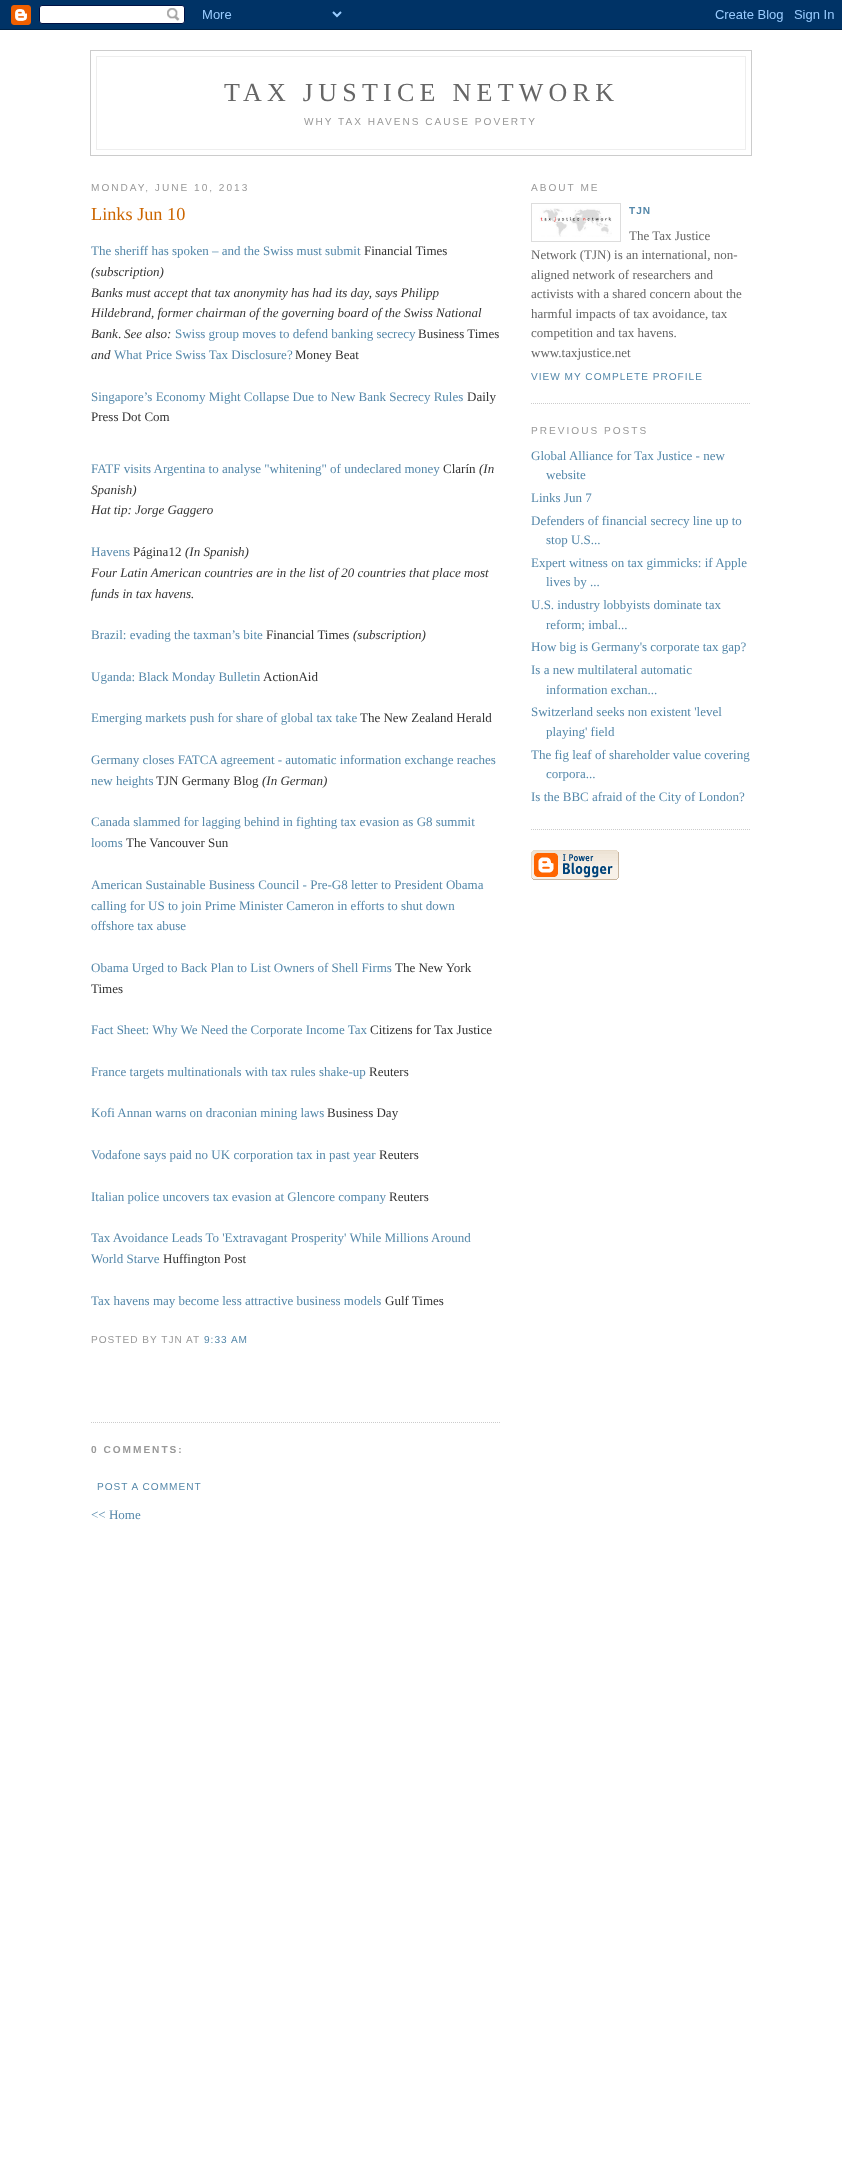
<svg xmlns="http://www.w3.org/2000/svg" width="842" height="2159">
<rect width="100%" height="100%" fill="#fff"/>
<image x="0" y="0" width="842" height="30" href="media/1.png"/>
<rect x="90.5" y="50.5" width="661" height="105" fill="none" stroke="#ccc"/>
<rect x="96" y="56" width="650" height="1" fill="#eee"/>
<rect x="745" y="56" width="1" height="94" fill="#eee"/>
<rect x="96" y="56" width="1" height="59" fill="#eee"/>
<text x="224" y="101" style="font-family:Liberation Serif;font-size:26px;letter-spacing:5.25px;fill:#666">TAX JUSTICE NETWORK</text>
<rect x="96" y="149" width="650" height="1" fill="#eee"/>
<rect x="96" y="115" width="1" height="35" fill="#eee"/>
<text x="304" y="125" style="font-family:Liberation Sans;font-size:10.1px;letter-spacing:2px;fill:#999">WHY TAX HAVENS CAUSE POVERTY</text>
<text x="91" y="191" style="font-family:Liberation Sans;font-size:10.1px;letter-spacing:2px;fill:#999">MONDAY, JUNE 10, 2013</text>
<path d="M91 1422.5h410" fill="none" stroke="#ccc" stroke-dasharray="1 1"/>
<text x="91" y="220" style="font-family:Liberation Serif;font-size:18.25px;fill:#c60">Links Jun 10</text>
<text x="91" y="255" style="font-family:Liberation Serif;font-size:13px;fill:#58a">The sheriff has spoken – and the Swiss must submit</text>
<text x="364" y="255" style="font-family:Liberation Serif;font-size:13px;fill:#333">Financial Times</text>
<text x="91" y="276" style="font-family:Liberation Serif;font-size:13px;font-style:italic;fill:#333">(subscription)</text>
<text x="91" y="297" style="font-family:Liberation Serif;font-size:13px;font-style:italic;fill:#333">Banks must accept that tax anonymity has had its day, says Philipp</text>
<text x="91" y="317" style="font-family:Liberation Serif;font-size:13px;font-style:italic;fill:#333">Hildebrand, former chairman of the governing board of the Swiss National</text>
<text x="91" y="338" style="font-family:Liberation Serif;font-size:13px;font-style:italic;fill:#333">Bank</text>
<text x="118" y="338" style="font-family:Liberation Serif;font-size:13px;fill:#333">.</text>
<text x="124" y="338" style="font-family:Liberation Serif;font-size:13px;font-style:italic;fill:#333">See also:</text>
<text x="175" y="338" style="font-family:Liberation Serif;font-size:13px;fill:#58a">Swiss group moves to defend banking secrecy</text>
<text x="418" y="338" style="font-family:Liberation Serif;font-size:13px;fill:#333">Business Times</text>
<text x="91" y="359" style="font-family:Liberation Serif;font-size:13px;font-style:italic;fill:#333">and</text>
<text x="114" y="359" style="font-family:Liberation Serif;font-size:13px;fill:#58a">What Price Swiss Tax Disclosure?</text>
<text x="295" y="359" style="font-family:Liberation Serif;font-size:13px;fill:#333">Money Beat</text>
<text x="91" y="401" style="font-family:Liberation Serif;font-size:13px;fill:#58a">Singapore’s Economy Might Collapse Due to New Bank Secrecy Rules</text>
<text x="467" y="401" style="font-family:Liberation Serif;font-size:13px;fill:#333">Daily</text>
<text x="91" y="421" style="font-family:Liberation Serif;font-size:13px;fill:#333">Press Dot Com</text>
<text x="91" y="473" style="font-family:Liberation Serif;font-size:13px;fill:#58a">FATF visits Argentina to analyse "whitening" of undeclared money</text>
<text x="443" y="473" style="font-family:Liberation Serif;font-size:13px;fill:#333">Clarín</text>
<text x="479" y="473" style="font-family:Liberation Serif;font-size:13px;font-style:italic;fill:#333">(In</text>
<text x="91" y="494" style="font-family:Liberation Serif;font-size:13px;font-style:italic;fill:#333">Spanish)</text>
<text x="91" y="514" style="font-family:Liberation Serif;font-size:13px;font-style:italic;fill:#333">Hat tip: Jorge Gaggero</text>
<text x="91" y="556" style="font-family:Liberation Serif;font-size:13px;fill:#58a">Havens</text>
<text x="133" y="556" style="font-family:Liberation Serif;font-size:13px;fill:#333">Página12</text>
<text x="185" y="556" style="font-family:Liberation Serif;font-size:13px;font-style:italic;fill:#333">(In Spanish)</text>
<text x="91" y="577" style="font-family:Liberation Serif;font-size:13px;font-style:italic;fill:#333">Four Latin American countries are in the list of 20 countries that place most</text>
<text x="91" y="598" style="font-family:Liberation Serif;font-size:13px;font-style:italic;fill:#333">funds in tax havens.</text>
<text x="91" y="639" style="font-family:Liberation Serif;font-size:13px;fill:#58a">Brazil: evading the taxman’s bite</text>
<text x="266" y="639" style="font-family:Liberation Serif;font-size:13px;fill:#333">Financial Times</text>
<text x="353" y="639" style="font-family:Liberation Serif;font-size:13px;font-style:italic;fill:#333">(subscription)</text>
<text x="91" y="681" style="font-family:Liberation Serif;font-size:13px;fill:#58a">Uganda: Black Monday Bulletin</text>
<text x="263" y="681" style="font-family:Liberation Serif;font-size:13px;fill:#333">ActionAid</text>
<text x="91" y="722" style="font-family:Liberation Serif;font-size:13px;fill:#58a">Emerging markets push for share of global tax take</text>
<text x="360" y="722" style="font-family:Liberation Serif;font-size:13px;fill:#333">The New Zealand Herald</text>
<text x="91" y="764" style="font-family:Liberation Serif;font-size:13px;fill:#58a">Germany closes FATCA agreement - automatic information exchange reaches</text>
<text x="91" y="785" style="font-family:Liberation Serif;font-size:13px;fill:#58a">new heights</text>
<text x="156" y="785" style="font-family:Liberation Serif;font-size:13px;fill:#333">TJN Germany Blog</text>
<text x="262" y="785" style="font-family:Liberation Serif;font-size:13px;font-style:italic;fill:#333">(In German)</text>
<text x="91" y="826" style="font-family:Liberation Serif;font-size:13px;fill:#58a">Canada slammed for lagging behind in fighting tax evasion as G8 summit</text>
<text x="91" y="847" style="font-family:Liberation Serif;font-size:13px;fill:#58a">looms</text>
<text x="126" y="847" style="font-family:Liberation Serif;font-size:13px;fill:#333">The Vancouver Sun</text>
<text x="91" y="889" style="font-family:Liberation Serif;font-size:13px;fill:#58a">American Sustainable Business Council - Pre-G8 letter to President Obama</text>
<text x="91" y="910" style="font-family:Liberation Serif;font-size:13px;fill:#58a">calling for US to join Prime Minister Cameron in efforts to shut down</text>
<text x="91" y="930" style="font-family:Liberation Serif;font-size:13px;fill:#58a">offshore tax abuse</text>
<text x="91" y="972" style="font-family:Liberation Serif;font-size:13px;fill:#58a">Obama Urged to Back Plan to List Owners of Shell Firms</text>
<text x="395" y="972" style="font-family:Liberation Serif;font-size:13px;fill:#333">The New York</text>
<text x="91" y="993" style="font-family:Liberation Serif;font-size:13px;fill:#333">Times</text>
<text x="91" y="1034" style="font-family:Liberation Serif;font-size:13px;fill:#58a">Fact Sheet: Why We Need the Corporate Income Tax</text>
<text x="370" y="1034" style="font-family:Liberation Serif;font-size:13px;fill:#333">Citizens for Tax Justice</text>
<text x="91" y="1076" style="font-family:Liberation Serif;font-size:13px;fill:#58a">France targets multinationals with tax rules shake-up</text>
<text x="369" y="1076" style="font-family:Liberation Serif;font-size:13px;fill:#333">Reuters</text>
<text x="91" y="1117" style="font-family:Liberation Serif;font-size:13px;fill:#58a">Kofi Annan warns on draconian mining laws</text>
<text x="327" y="1117" style="font-family:Liberation Serif;font-size:13px;fill:#333">Business Day</text>
<text x="91" y="1159" style="font-family:Liberation Serif;font-size:13px;fill:#58a">Vodafone says paid no UK corporation tax in past year</text>
<text x="379" y="1159" style="font-family:Liberation Serif;font-size:13px;fill:#333">Reuters</text>
<text x="91" y="1201" style="font-family:Liberation Serif;font-size:13px;fill:#58a">Italian police uncovers tax evasion at Glencore company</text>
<text x="389" y="1201" style="font-family:Liberation Serif;font-size:13px;fill:#333">Reuters</text>
<text x="91" y="1242" style="font-family:Liberation Serif;font-size:13px;fill:#58a">Tax Avoidance Leads To 'Extravagant Prosperity' While Millions Around</text>
<text x="91" y="1263" style="font-family:Liberation Serif;font-size:13px;fill:#58a">World Starve</text>
<text x="163" y="1263" style="font-family:Liberation Serif;font-size:13px;fill:#333">Huffington Post</text>
<text x="91" y="1305" style="font-family:Liberation Serif;font-size:13px;fill:#58a">Tax havens may become less attractive business models</text>
<text x="385" y="1305" style="font-family:Liberation Serif;font-size:13px;fill:#333">Gulf Times</text>
<text x="91" y="1343" style="font-family:Liberation Sans;font-size:10.1px;letter-spacing:1px;fill:#999">POSTED BY TJN AT</text>
<text x="204" y="1343" style="font-family:Liberation Sans;font-size:10.1px;letter-spacing:1px;fill:#58a">9:33 AM</text>
<text x="91" y="1453" style="font-family:Liberation Sans;font-size:10.1px;font-weight:bold;letter-spacing:2px;fill:#999">0 COMMENTS:</text>
<text x="97" y="1490" style="font-family:Liberation Sans;font-size:10.1px;letter-spacing:1px;fill:#58a">POST A COMMENT</text>
<text x="91" y="1519" style="font-family:Liberation Serif;font-size:13px;fill:#58a">&lt;&lt; Home</text>
<path d="M531 403.5h220" fill="none" stroke="#ccc" stroke-dasharray="1 1"/>
<text x="531" y="191" style="font-family:Liberation Sans;font-size:10.1px;letter-spacing:2px;fill:#999">ABOUT ME</text>
<rect x="531.5" y="203.5" width="89" height="38" fill="none" stroke="#ddd"/>
<image x="539" y="208" width="73" height="29" href="media/2.png"/>
<text x="629" y="214" style="font-family:Liberation Sans;font-size:10.1px;font-weight:bold;letter-spacing:1px;fill:#58a">TJN</text>
<text x="629" y="240" style="font-family:Liberation Serif;font-size:13px;fill:#666">The Tax Justice</text>
<text x="531" y="259" style="font-family:Liberation Serif;font-size:13px;fill:#666">Network (TJN) is an international, non-</text>
<text x="531" y="279" style="font-family:Liberation Serif;font-size:13px;fill:#666">aligned network of researchers and</text>
<text x="531" y="298" style="font-family:Liberation Serif;font-size:13px;fill:#666">activists with a shared concern about the</text>
<text x="531" y="318" style="font-family:Liberation Serif;font-size:13px;fill:#666">harmful impacts of tax avoidance, tax</text>
<text x="531" y="337" style="font-family:Liberation Serif;font-size:13px;fill:#666">competition and tax havens.</text>
<text x="531" y="357" style="font-family:Liberation Serif;font-size:13px;fill:#666">www.taxjustice.net</text>
<text x="531" y="380" style="font-family:Liberation Sans;font-size:10.1px;letter-spacing:1px;fill:#58a">VIEW MY COMPLETE PROFILE</text>
<text x="531" y="434" style="font-family:Liberation Sans;font-size:10.1px;letter-spacing:2px;fill:#999">PREVIOUS POSTS</text>
<path d="M531 829.5h220" fill="none" stroke="#ccc" stroke-dasharray="1 1"/>
<text x="531" y="460" style="font-family:Liberation Serif;font-size:13px;fill:#58a">Global Alliance for Tax Justice - new</text>
<text x="546" y="479" style="font-family:Liberation Serif;font-size:13px;fill:#58a">website</text>
<text x="531" y="502" style="font-family:Liberation Serif;font-size:13px;fill:#58a">Links Jun 7</text>
<text x="531" y="525" style="font-family:Liberation Serif;font-size:13px;fill:#58a">Defenders of financial secrecy line up to</text>
<text x="546" y="544" style="font-family:Liberation Serif;font-size:13px;fill:#58a">stop U.S...</text>
<text x="531" y="567" style="font-family:Liberation Serif;font-size:13px;fill:#58a">Expert witness on tax gimmicks: if Apple</text>
<text x="546" y="586" style="font-family:Liberation Serif;font-size:13px;fill:#58a">lives by ...</text>
<text x="531" y="609" style="font-family:Liberation Serif;font-size:13px;fill:#58a">U.S. industry lobbyists dominate tax</text>
<text x="546" y="629" style="font-family:Liberation Serif;font-size:13px;fill:#58a">reform; imbal...</text>
<text x="531" y="651" style="font-family:Liberation Serif;font-size:13px;fill:#58a">How big is Germany's corporate tax gap?</text>
<text x="531" y="674" style="font-family:Liberation Serif;font-size:13px;fill:#58a">Is a new multilateral automatic</text>
<text x="546" y="694" style="font-family:Liberation Serif;font-size:13px;fill:#58a">information exchan...</text>
<text x="531" y="716" style="font-family:Liberation Serif;font-size:13px;fill:#58a">Switzerland seeks non existent 'level</text>
<text x="546" y="736" style="font-family:Liberation Serif;font-size:13px;fill:#58a">playing' field</text>
<text x="531" y="759" style="font-family:Liberation Serif;font-size:13px;fill:#58a">The fig leaf of shareholder value covering</text>
<text x="546" y="778" style="font-family:Liberation Serif;font-size:13px;fill:#58a">corpora...</text>
<text x="531" y="801" style="font-family:Liberation Serif;font-size:13px;fill:#58a">Is the BBC afraid of the City of London?</text>
<image x="531" y="850" width="88" height="30" href="media/3.png"/>
</svg>
